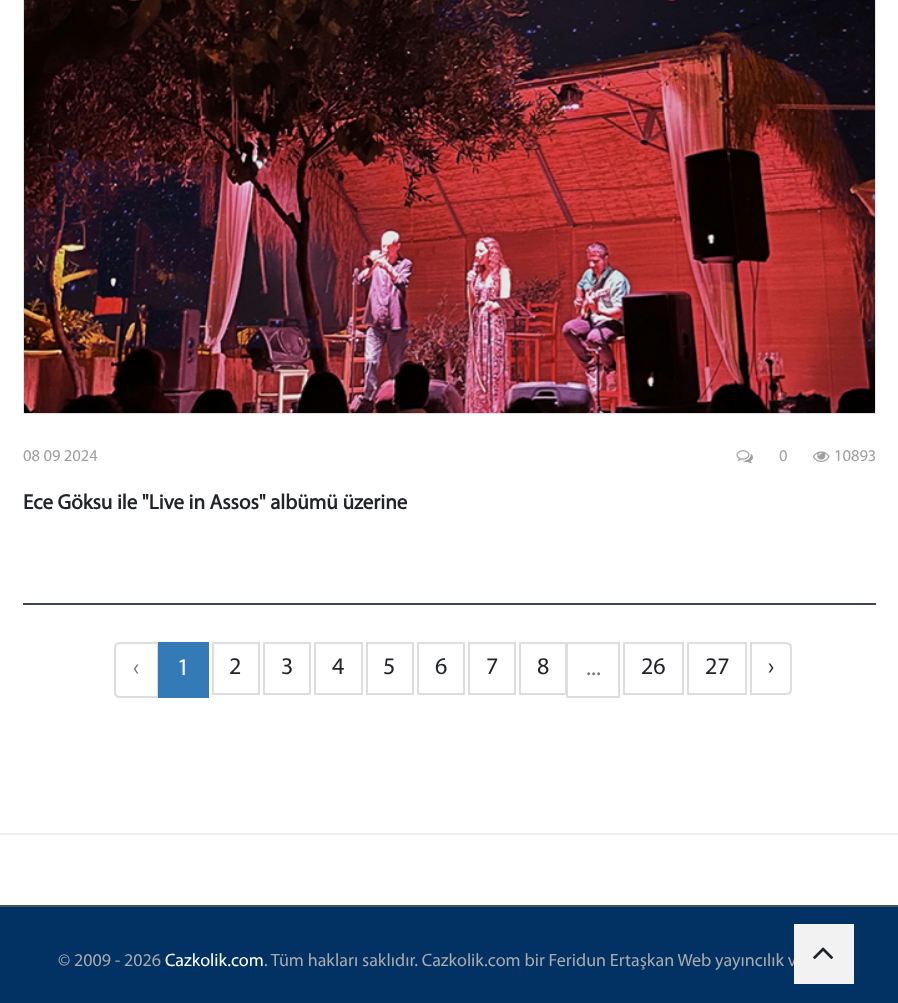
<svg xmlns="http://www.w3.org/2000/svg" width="898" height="1003">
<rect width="100%" height="100%" fill="#fff"/>
<rect x="24" y="-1" width="851" height="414" fill="none" stroke="#e1e1e1" stroke-width="2"/>
<image x="24" y="0" width="851" height="413" href="media/1.png"/>
<text x="23" y="461" style="font-family:Myriad;font-size:16.5px;fill:#a0a0a0">08 09 2024</text>
<image x="736" y="450" width="17" height="14" href="media/2.png"/>
<text x="779" y="461" style="font-family:Myriad;font-size:16.5px;fill:#a0a0a0">0</text>
<image x="813" y="451" width="17" height="11" href="media/3.png"/>
<text x="834" y="461" style="font-family:Myriad;font-size:16.5px;fill:#a0a0a0">10893</text>
<text x="23" y="509" style="font-family:Myriad;font-size:21px;font-weight:bold;fill:#212428">Ece Göksu ile "Live in Assos" albümü üzerine</text>
<rect x="23" y="603" width="853" height="2" fill="#3e454c"/>
<path d="M120 643h38v54h-38c-3 0-5-2-5-5v-44c0-3 2-5 5-5z" fill="none" stroke="#ddd" stroke-width="2"/>
<text x="133" y="675" style="font-family:Myriad;font-size:24px;fill:#777">‹</text>
<rect x="158" y="642" width="51" height="56" fill="#337ab7"/>
<text x="177" y="675" style="font-family:Myriad;font-size:24px;fill:#fff">1</text>
<rect x="213" y="643" width="46" height="51" fill="none" stroke="#ddd" stroke-width="2"/>
<text x="229" y="674" style="font-family:Myriad;font-size:24px;fill:#212428">2</text>
<rect x="264" y="643" width="46" height="51" fill="none" stroke="#ddd" stroke-width="2"/>
<text x="281" y="674" style="font-family:Myriad;font-size:24px;fill:#212428">3</text>
<rect x="315" y="643" width="47" height="51" fill="none" stroke="#ddd" stroke-width="2"/>
<text x="332" y="674" style="font-family:Myriad;font-size:24px;fill:#212428">4</text>
<rect x="367" y="643" width="46" height="51" fill="none" stroke="#ddd" stroke-width="2"/>
<text x="383" y="674" style="font-family:Myriad;font-size:24px;fill:#212428">5</text>
<rect x="418" y="643" width="46" height="51" fill="none" stroke="#ddd" stroke-width="2"/>
<text x="435" y="674" style="font-family:Myriad;font-size:24px;fill:#212428">6</text>
<rect x="469" y="643" width="46" height="51" fill="none" stroke="#ddd" stroke-width="2"/>
<text x="486" y="674" style="font-family:Myriad;font-size:24px;fill:#212428">7</text>
<rect x="520" y="643" width="46" height="51" fill="none" stroke="#ddd" stroke-width="2"/>
<text x="537" y="674" style="font-family:Myriad;font-size:24px;fill:#212428">8</text>
<rect x="567" y="643" width="52" height="54" fill="none" stroke="#ddd" stroke-width="2"/>
<text x="586" y="675" style="font-family:Myriad;font-size:24px;fill:#777">...</text>
<rect x="624" y="643" width="59" height="51" fill="none" stroke="#ddd" stroke-width="2"/>
<text x="641" y="674" style="font-family:Myriad;font-size:24px;fill:#212428">26</text>
<rect x="688" y="643" width="58" height="51" fill="none" stroke="#ddd" stroke-width="2"/>
<text x="705" y="674" style="font-family:Myriad;font-size:24px;fill:#212428">27</text>
<path d="M751 643h35c3 0 5 2 5 5v41c0 3-2 5-5 5h-35z" fill="none" stroke="#ddd" stroke-width="2"/>
<text x="768" y="674" style="font-family:Myriad;font-size:24px;fill:#212428">›</text>
<rect y="833" width="898" height="2" fill="#eee"/>
<rect y="907" width="898" height="96" fill="#023263"/>
<rect y="905" width="898" height="2" fill="#4b5158"/>
<text x="58" y="966" style="font-family:Myriad;font-size:18px;fill:#a8aaad">© 2009 - 2026</text>
<text x="165" y="966" style="font-family:Myriad;font-size:18px;fill:#fff">Cazkolik.com</text>
<text x="264" y="966" style="font-family:Myriad;font-size:18px;fill:#a8aaad">. Tüm hakları saklıdır. Cazkolik.com bir Feridun Ertaşkan Web yayıncılık v</text>
<rect x="794" y="924" width="60" height="60" fill="#f2f2f2"/>
<image x="813" y="947" width="21" height="12" href="media/4.png"/>
</svg>
